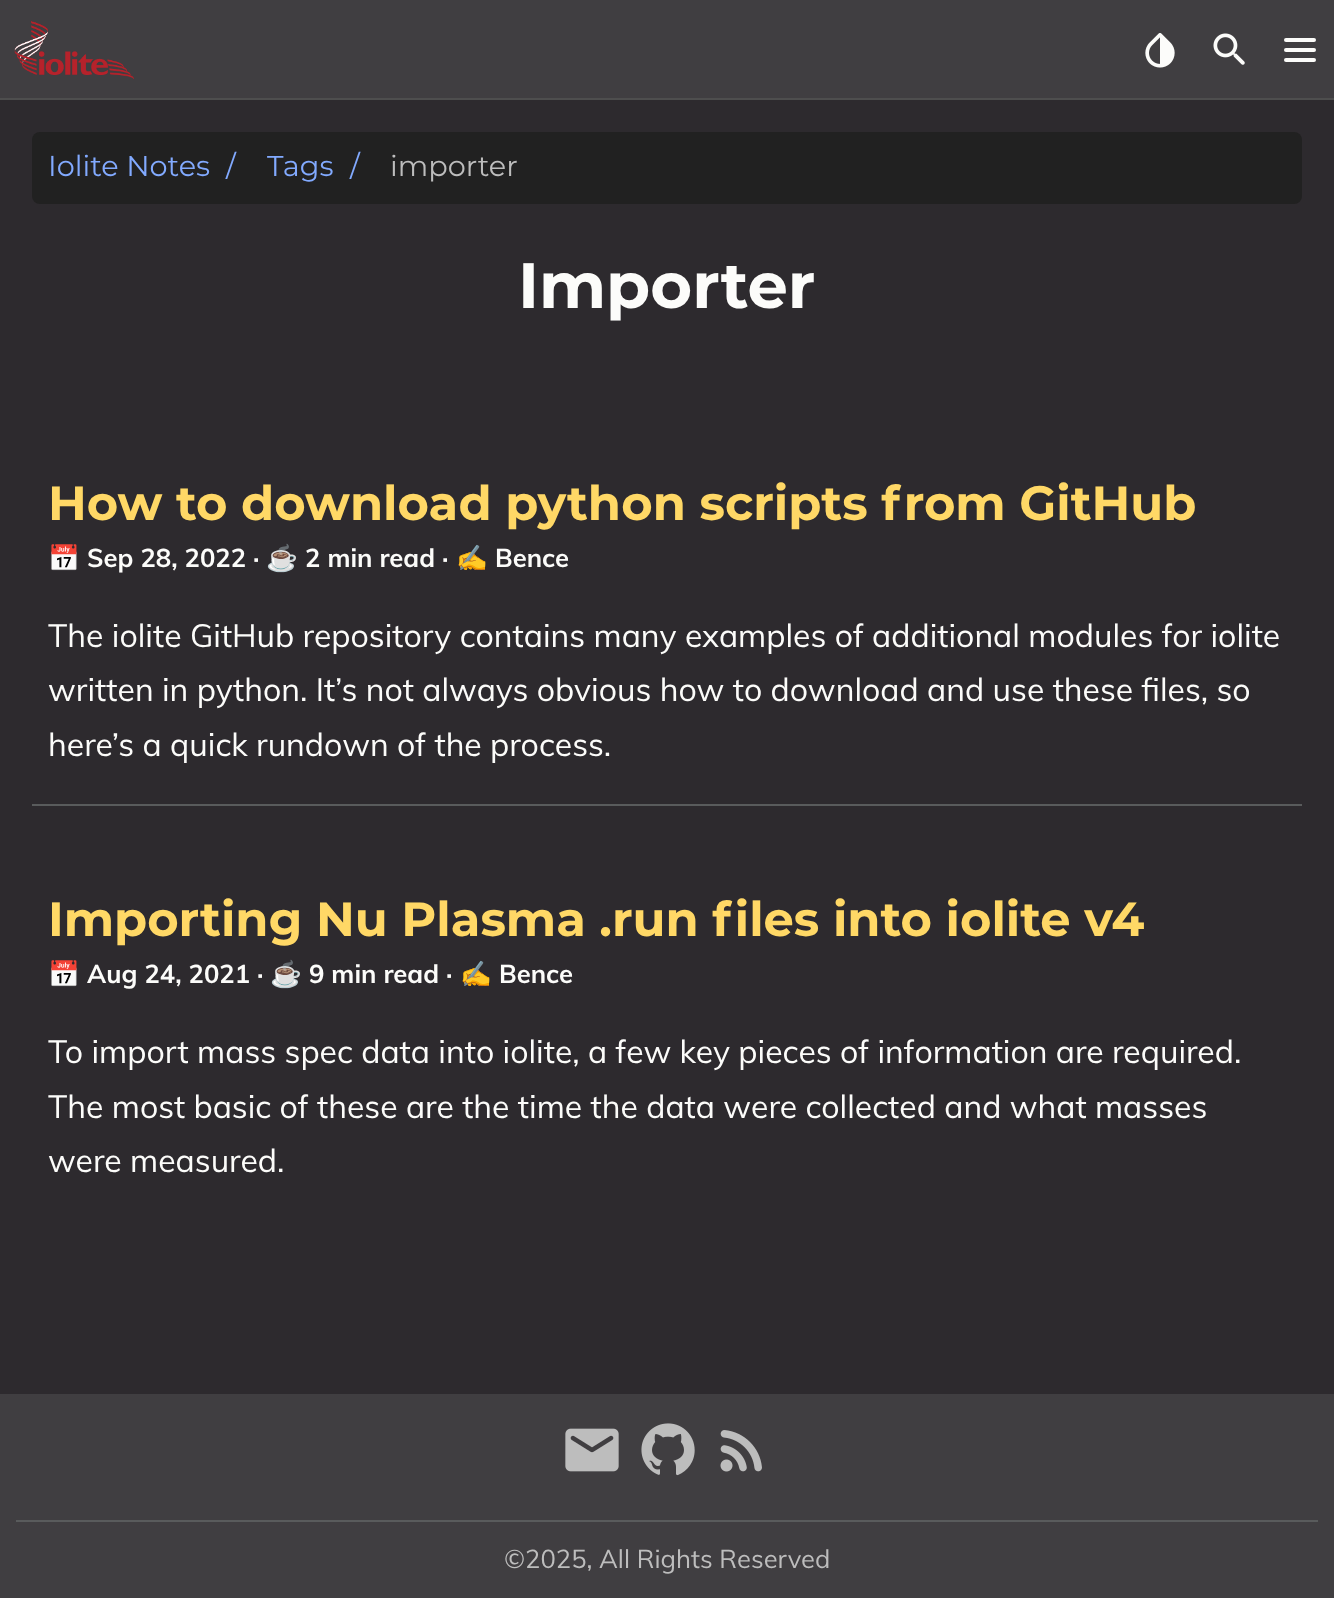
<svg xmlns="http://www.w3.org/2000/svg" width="1334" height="1598">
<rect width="100%" height="100%" fill="#2d2a2e"/>
<rect width="1334" height="98" fill="#403e41"/>
<rect y="98" width="1334" height="2" fill="#4e4e4e"/>
<image x="14" y="21" width="120" height="59" href="media/1.png"/>
<image x="1145" y="33" width="30" height="35" href="media/2.png"/>
<image x="1213" y="33" width="32" height="32" href="media/3.png"/>
<rect x="1284" y="38" width="32" height="4" rx="2" fill="#fcfcfa"/>
<rect x="1284" y="48" width="32" height="4" rx="2" fill="#fcfcfa"/>
<rect x="1284" y="58" width="32" height="4" rx="2" fill="#fcfcfa"/>
<rect x="32" y="132" width="1270" height="72" rx="8" fill="#212121"/>
<text x="48" y="176" style="font-family:Montserrat;font-size:28.75px;fill:#82aaff">Iolite Notes</text>
<text x="226" y="176" style="font-family:Montserrat;font-size:28.75px;fill:#82aaff">/</text>
<text x="267" y="176" style="font-family:Montserrat;font-size:28.75px;fill:#82aaff">Tags</text>
<text x="350" y="176" style="font-family:Montserrat;font-size:28.75px;fill:#82aaff">/</text>
<text x="390" y="176" style="font-family:Montserrat;font-size:28.75px;fill:#bdbdbd">importer</text>
<text x="518" y="308" style="font-family:Montserrat;font-size:64px;font-weight:bold;fill:#fcfcfa">Importer</text>
<text x="48" y="520" style="font-family:Montserrat;font-size:48px;font-weight:bold;fill:#ffd866">How to download python scripts from GitHub</text>
<text x="48" y="567" style="font-family:Noto Color Emoji;font-size:25.6px;font-weight:bold;fill:#fcfcfa">📅</text>
<text x="87" y="567" style="font-family:Muli;font-size:25.6px;font-weight:bold;fill:#fcfcfa">Sep 28, 2022 ·</text>
<text x="266" y="567" style="font-family:Noto Color Emoji;font-size:25.6px;font-weight:bold;fill:#fcfcfa">☕</text>
<text x="305" y="567" style="font-family:Muli;font-size:25.6px;font-weight:bold;fill:#fcfcfa">2 min read ·</text>
<text x="456" y="567" style="font-family:Noto Color Emoji;font-size:25.6px;font-weight:bold;fill:#fcfcfa">✍️</text>
<text x="495" y="567" style="font-family:Muli;font-size:25.6px;font-weight:bold;fill:#fcfcfa">Bence</text>
<text x="48" y="647" style="font-family:Muli;font-size:32px;fill:#fcfcfa">The iolite GitHub repository contains many examples of additional modules for iolite</text>
<text x="48" y="701" style="font-family:Muli;font-size:32px;fill:#fcfcfa">written in python. It’s not always obvious how to download and use these files, so</text>
<text x="48" y="756" style="font-family:Muli;font-size:32px;fill:#fcfcfa">here’s a quick rundown of the process.</text>
<rect x="32" y="804" width="1270" height="2" fill="#595b5c"/>
<text x="48" y="936" style="font-family:Montserrat;font-size:48px;font-weight:bold;fill:#ffd866">Importing Nu Plasma .run files into iolite v4</text>
<text x="48" y="983" style="font-family:Noto Color Emoji;font-size:25.6px;font-weight:bold;fill:#fcfcfa">📅</text>
<text x="87" y="983" style="font-family:Muli;font-size:25.6px;font-weight:bold;fill:#fcfcfa">Aug 24, 2021 ·</text>
<text x="270" y="983" style="font-family:Noto Color Emoji;font-size:25.6px;font-weight:bold;fill:#fcfcfa">☕</text>
<text x="309" y="983" style="font-family:Muli;font-size:25.6px;font-weight:bold;fill:#fcfcfa">9 min read ·</text>
<text x="460" y="983" style="font-family:Noto Color Emoji;font-size:25.6px;font-weight:bold;fill:#fcfcfa">✍️</text>
<text x="499" y="983" style="font-family:Muli;font-size:25.6px;font-weight:bold;fill:#fcfcfa">Bence</text>
<text x="48" y="1063" style="font-family:Muli;font-size:32px;fill:#fcfcfa">To import mass spec data into iolite, a few key pieces of information are required.</text>
<text x="48" y="1118" style="font-family:Muli;font-size:32px;fill:#fcfcfa">The most basic of these are the time the data were collected and what masses</text>
<text x="48" y="1172" style="font-family:Muli;font-size:32px;fill:#fcfcfa">were measured.</text>
<rect y="1394" width="1334" height="204" fill="#403e41"/>
<image x="565" y="1428" width="54" height="44" href="media/4.png"/>
<image x="641" y="1423" width="54" height="53" href="media/5.png"/>
<image x="720" y="1430" width="42" height="42" href="media/6.png"/>
<rect x="16" y="1520" width="1302" height="2" fill="#595b5c"/>
<text x="504" y="1568" style="font-family:Muli;font-size:25.6px;fill:#bdbdbd">©2025, All Rights Reserved</text>
</svg>
